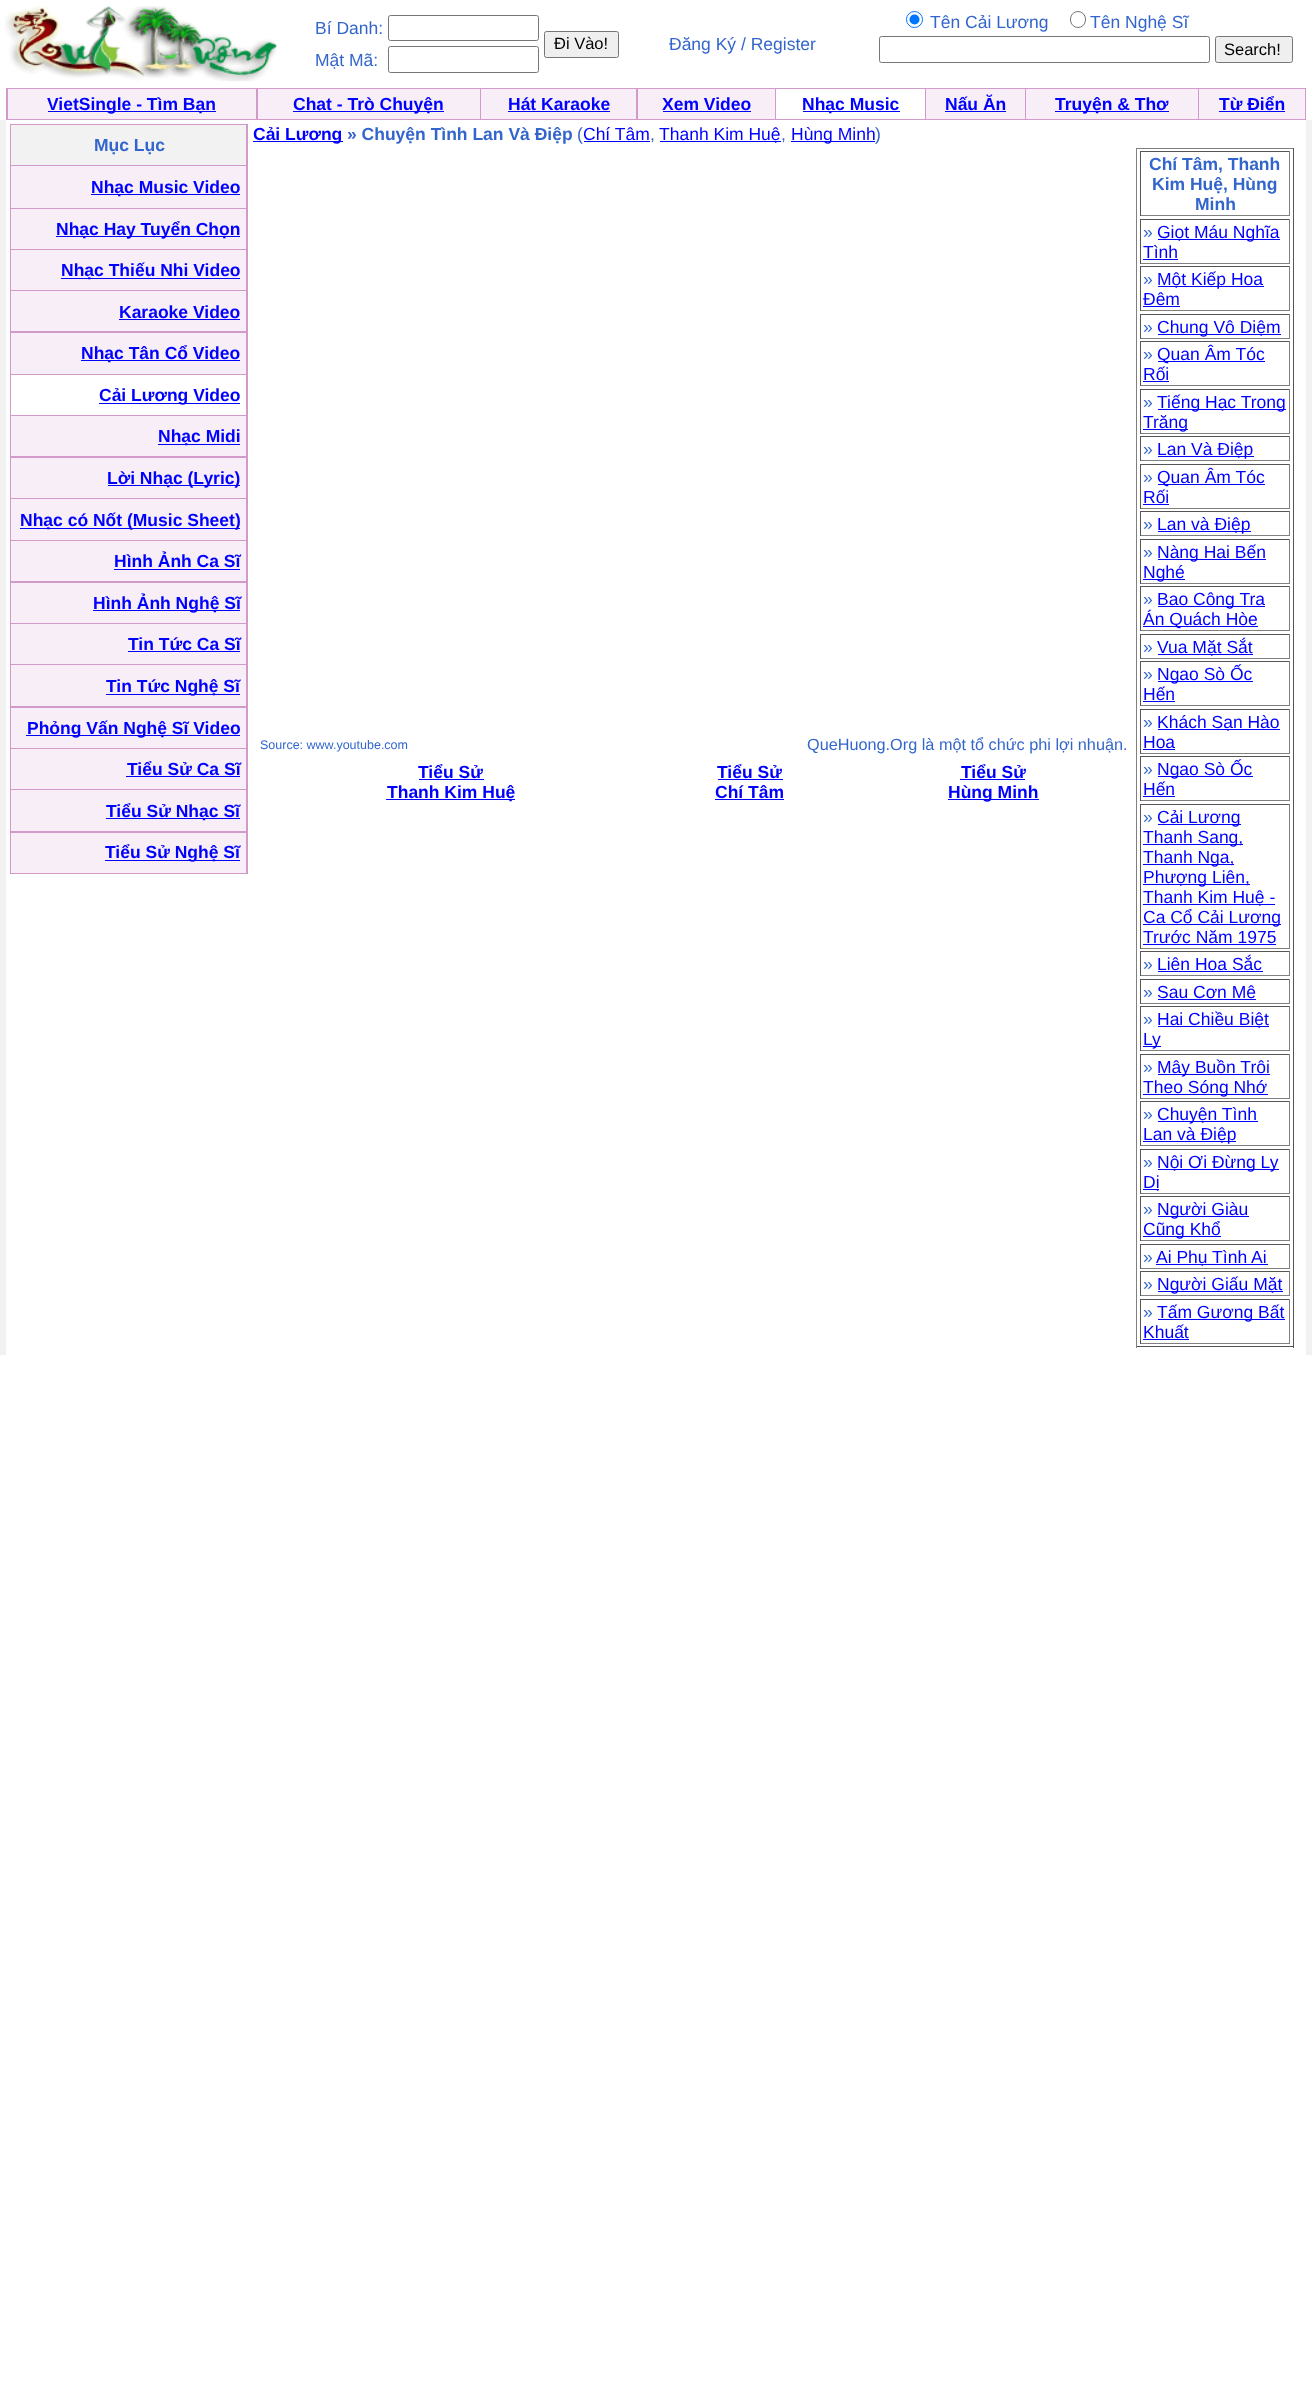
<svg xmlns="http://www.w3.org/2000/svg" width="1312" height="2399">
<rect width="100%" height="100%" fill="#fff"/>
<image x="5" y="6" width="272" height="76" href="media/1.png"/>
<text x="315" y="34" style="font-family:Liberation Sans;font-size:17.5px;fill:#36c">Bí Danh:</text>
<rect x="388.5" y="15.5" width="150" height="25" rx="2" fill="none" stroke="#767676"/>
<rect x="544.5" y="31.5" width="74" height="26" rx="2" fill="#efefef" stroke="#767676"/>
<text x="554" y="49" style="font-family:Liberation Sans;font-size:16.5px;fill:#000">Đi Vào!</text>
<text x="315" y="66" style="font-family:Liberation Sans;font-size:17.5px;fill:#36c">Mật Mã:</text>
<rect x="388.5" y="46.5" width="150" height="26" rx="2" fill="none" stroke="#767676"/>
<text x="669" y="50" style="font-family:Liberation Sans;font-size:17.5px;fill:#36c">Đăng Ký / Register</text>
<circle cx="914.5" cy="19.5" r="8" fill="none" stroke="#0075ff"/>
<circle cx="914.5" cy="19.5" r="5" fill="#0075ff"/>
<text x="930" y="28" style="font-family:Liberation Sans;font-size:17.5px;fill:#36c">Tên Cải Lương</text>
<rect x="1070.5" y="11.5" width="15" height="16" rx="7.5" fill="none" stroke="#767676"/>
<text x="1090" y="28" style="font-family:Liberation Sans;font-size:17.5px;fill:#36c">Tên Nghệ Sĩ</text>
<rect x="879.5" y="36.5" width="330" height="26" rx="2" fill="none" stroke="#767676"/>
<rect x="1215.5" y="36.5" width="77" height="26" rx="2" fill="#efefef" stroke="#767676"/>
<text x="1224" y="55" style="font-family:Liberation Sans;font-size:16.5px;fill:#000">Search!</text>
<rect x="6" y="88" width="1300" height="32" fill="#d29ac8"/>
<rect x="8" y="89" width="248" height="30" fill="#f7eef7"/>
<rect x="48" y="111" width="168" height="1" fill="#00f"/>
<text x="47" y="110" style="font-family:Liberation Sans;font-size:17.5px;font-weight:bold;fill:#00f">VietSingle - Tìm Bạn</text>
<rect x="258" y="89" width="222" height="30" fill="#f7eef7"/>
<rect x="293" y="111" width="151" height="1" fill="#00f"/>
<text x="293" y="110" style="font-family:Liberation Sans;font-size:17.5px;font-weight:bold;fill:#00f">Chat - Trò Chuyện</text>
<rect x="481" y="89" width="155" height="30" fill="#f7eef7"/>
<text x="508" y="110" style="font-family:Liberation Sans;font-size:17.5px;font-weight:bold;fill:#00f">Hát Karaoke</text>
<rect x="508" y="111" width="102" height="1" fill="#00f"/>
<rect x="638" y="89" width="137" height="30" fill="#f7eef7"/>
<text x="662" y="110" style="font-family:Liberation Sans;font-size:17.5px;font-weight:bold;fill:#00f">Xem Video</text>
<rect x="663" y="111" width="88" height="1" fill="#00f"/>
<rect x="776" y="89" width="149" height="30" fill="#fff"/>
<rect x="803" y="111" width="97" height="1" fill="#00f"/>
<text x="802" y="110" style="font-family:Liberation Sans;font-size:17.5px;font-weight:bold;fill:#00f">Nhạc Music</text>
<rect x="926" y="89" width="99" height="30" fill="#f7eef7"/>
<text x="945" y="110" style="font-family:Liberation Sans;font-size:17.5px;font-weight:bold;fill:#00f">Nấu Ăn</text>
<rect x="945" y="111" width="61" height="1" fill="#00f"/>
<rect x="1026" y="89" width="172" height="30" fill="#f7eef7"/>
<rect x="1055" y="111" width="114" height="1" fill="#00f"/>
<text x="1055" y="110" style="font-family:Liberation Sans;font-size:17.5px;font-weight:bold;fill:#00f">Truyện &amp; Thơ</text>
<rect x="1199" y="89" width="106" height="30" fill="#f7eef7"/>
<text x="1219" y="110" style="font-family:Liberation Sans;font-size:17.5px;font-weight:bold;fill:#00f">Từ Điển</text>
<rect x="1219" y="111" width="66" height="1" fill="#00f"/>
<rect y="120" width="1312" height="1235" fill="#f1f1f1"/>
<rect x="6" y="120" width="1300" height="1235" fill="#fff"/>
<rect x="10" y="124" width="238" height="750" fill="#d29ac8"/>
<rect x="11" y="125" width="235" height="40" fill="#f2f2f2"/>
<text x="94" y="151" style="font-family:Liberation Sans;font-size:17.5px;font-weight:bold;fill:#36c">Mục Lục</text>
<rect x="11" y="166" width="235" height="42" fill="#f7eef7"/>
<rect x="91" y="194" width="149" height="1" fill="#00f"/>
<text x="91" y="193" style="font-family:Liberation Sans;font-size:17.5px;font-weight:bold;fill:#00f">Nhạc Music Video</text>
<rect x="11" y="209" width="235" height="40" fill="#f7eef7"/>
<rect x="56" y="236" width="184" height="1" fill="#00f"/>
<text x="56" y="235" style="font-family:Liberation Sans;font-size:17.5px;font-weight:bold;fill:#00f">Nhạc Hay Tuyển Chọn</text>
<rect x="11" y="250" width="235" height="40" fill="#f7eef7"/>
<rect x="61" y="278" width="179" height="1" fill="#00f"/>
<text x="61" y="276" style="font-family:Liberation Sans;font-size:17.5px;font-weight:bold;fill:#00f">Nhạc Thiếu Nhi Video</text>
<rect x="11" y="291" width="235" height="40" fill="#f7eef7"/>
<text x="119" y="318" style="font-family:Liberation Sans;font-size:17.5px;font-weight:bold;fill:#00f">Karaoke Video</text>
<rect x="119" y="319" width="121" height="1" fill="#00f"/>
<rect x="11" y="333" width="235" height="41" fill="#f7eef7"/>
<rect x="81" y="360" width="159" height="1" fill="#00f"/>
<text x="81" y="359" style="font-family:Liberation Sans;font-size:17.5px;font-weight:bold;fill:#00f">Nhạc Tân Cổ Video</text>
<rect x="11" y="375" width="235" height="40" fill="#fff"/>
<rect x="99" y="403" width="141" height="1" fill="#00f"/>
<text x="99" y="401" style="font-family:Liberation Sans;font-size:17.5px;font-weight:bold;fill:#00f">Cải Lương Video</text>
<rect x="11" y="416" width="235" height="40" fill="#f7eef7"/>
<rect x="158" y="444" width="82" height="1" fill="#00f"/>
<text x="158" y="442" style="font-family:Liberation Sans;font-size:17.5px;font-weight:bold;fill:#00f">Nhạc Midi</text>
<rect x="11" y="458" width="235" height="40" fill="#f7eef7"/>
<rect x="108" y="485" width="132" height="1" fill="#00f"/>
<text x="107" y="484" style="font-family:Liberation Sans;font-size:17.5px;font-weight:bold;fill:#00f">Lời Nhạc (Lyric)</text>
<rect x="11" y="499" width="235" height="41" fill="#f7eef7"/>
<rect x="20" y="528" width="220" height="1" fill="#00f"/>
<text x="20" y="526" style="font-family:Liberation Sans;font-size:17.5px;font-weight:bold;fill:#00f">Nhạc có Nốt (Music Sheet)</text>
<rect x="11" y="541" width="235" height="40" fill="#f7eef7"/>
<text x="114" y="567" style="font-family:Liberation Sans;font-size:17.5px;font-weight:bold;fill:#00f">Hình Ảnh Ca Sĩ</text>
<rect x="114" y="569" width="126" height="1" fill="#00f"/>
<rect x="11" y="583" width="235" height="40" fill="#f7eef7"/>
<rect x="93" y="610" width="147" height="1" fill="#00f"/>
<text x="93" y="609" style="font-family:Liberation Sans;font-size:17.5px;font-weight:bold;fill:#00f">Hình Ảnh Nghệ Sĩ</text>
<rect x="11" y="624" width="235" height="40" fill="#f7eef7"/>
<text x="128" y="650" style="font-family:Liberation Sans;font-size:17.5px;font-weight:bold;fill:#00f">Tin Tức Ca Sĩ</text>
<rect x="128" y="651" width="112" height="1" fill="#00f"/>
<rect x="11" y="665" width="235" height="41" fill="#f7eef7"/>
<rect x="106" y="694" width="134" height="1" fill="#00f"/>
<text x="106" y="692" style="font-family:Liberation Sans;font-size:17.5px;font-weight:bold;fill:#00f">Tin Tức Nghệ Sĩ</text>
<rect x="11" y="708" width="235" height="40" fill="#f7eef7"/>
<rect x="26" y="735" width="214" height="1" fill="#00f"/>
<text x="27" y="734" style="font-family:Liberation Sans;font-size:17.5px;font-weight:bold;fill:#00f">Phỏng Vấn Nghệ Sĩ Video</text>
<rect x="11" y="749" width="235" height="40" fill="#f7eef7"/>
<text x="127" y="775" style="font-family:Liberation Sans;font-size:17.5px;font-weight:bold;fill:#00f">Tiểu Sử Ca Sĩ</text>
<rect x="126" y="776" width="114" height="1" fill="#00f"/>
<rect x="11" y="790" width="235" height="41" fill="#f7eef7"/>
<rect x="106" y="818" width="134" height="1" fill="#00f"/>
<text x="106" y="817" style="font-family:Liberation Sans;font-size:17.5px;font-weight:bold;fill:#00f">Tiểu Sử Nhạc Sĩ</text>
<rect x="11" y="833" width="235" height="40" fill="#f7eef7"/>
<rect x="105" y="860" width="135" height="1" fill="#00f"/>
<text x="105" y="858" style="font-family:Liberation Sans;font-size:17.5px;font-weight:bold;fill:#00f">Tiểu Sử Nghệ Sĩ</text>
<rect x="253" y="141" width="90" height="1" fill="#00f"/>
<text x="253" y="140" style="font-family:Liberation Sans;font-size:17.5px;font-weight:bold;fill:#00f">Cải Lương</text>
<text x="347" y="140" style="font-family:Liberation Sans;font-size:17.5px;font-weight:bold;fill:#36c">» Chuyện Tình Lan Và Điệp</text>
<text x="577" y="140" style="font-family:Liberation Sans;font-size:17.5px;fill:#36c">(</text>
<text x="583" y="140" style="font-family:Liberation Sans;font-size:17.5px;fill:#00f">Chí Tâm</text>
<rect x="584" y="141" width="66" height="1" fill="#00f"/>
<text x="650" y="140" style="font-family:Liberation Sans;font-size:17.5px;fill:#36c">,</text>
<rect x="660" y="141" width="121" height="1" fill="#00f"/>
<text x="659" y="140" style="font-family:Liberation Sans;font-size:17.5px;fill:#00f">Thanh Kim Huệ</text>
<text x="781" y="140" style="font-family:Liberation Sans;font-size:17.5px;fill:#36c">,</text>
<rect x="791" y="141" width="84" height="1" fill="#00f"/>
<text x="791" y="140" style="font-family:Liberation Sans;font-size:17.5px;fill:#00f">Hùng Minh</text>
<text x="875" y="140" style="font-family:Liberation Sans;font-size:17.5px;fill:#36c">)</text>
<text x="260" y="749" style="font-family:Liberation Sans;font-size:12.5px;fill:#36c">Source: www.youtube.com</text>
<text x="807" y="750" style="font-family:Liberation Sans;font-size:16.25px;fill:#36c">QueHuong.Org là một tổ chức phi lợi nhuận.</text>
<text x="418" y="778" style="font-family:Liberation Sans;font-size:17.5px;font-weight:bold;fill:#00f">Tiểu Sử</text>
<rect x="419" y="779" width="65" height="1" fill="#00f"/>
<rect x="386" y="799" width="129" height="1" fill="#00f"/>
<text x="387" y="798" style="font-family:Liberation Sans;font-size:17.5px;font-weight:bold;fill:#00f">Thanh Kim Huệ</text>
<text x="717" y="778" style="font-family:Liberation Sans;font-size:17.5px;font-weight:bold;fill:#00f">Tiểu Sử</text>
<rect x="718" y="779" width="65" height="1" fill="#00f"/>
<text x="715" y="798" style="font-family:Liberation Sans;font-size:17.5px;font-weight:bold;fill:#00f">Chí Tâm</text>
<rect x="715" y="799" width="69" height="1" fill="#00f"/>
<text x="961" y="778" style="font-family:Liberation Sans;font-size:17.5px;font-weight:bold;fill:#00f">Tiểu Sử</text>
<rect x="960" y="779" width="65" height="1" fill="#00f"/>
<rect x="948" y="799" width="91" height="1" fill="#00f"/>
<text x="948" y="798" style="font-family:Liberation Sans;font-size:17.5px;font-weight:bold;fill:#00f">Hùng Minh</text>
<rect x="1136" y="148" width="158" height="1" fill="#808080"/>
<rect x="1293" y="148" width="1" height="1200" fill="#555"/>
<rect x="1136" y="1346" width="158" height="1" fill="#555"/>
<rect x="1136" y="148" width="1" height="1200" fill="#808080"/>
<rect x="1140" y="151" width="150" height="1" fill="#555"/>
<rect x="1289" y="151" width="1" height="65" fill="#808080"/>
<rect x="1140" y="215" width="150" height="1" fill="#808080"/>
<rect x="1140" y="151" width="1" height="65" fill="#555"/>
<text x="1149" y="170" style="font-family:Liberation Sans;font-size:17.5px;font-weight:bold;fill:#36c">Chí Tâm, Thanh</text>
<text x="1152" y="190" style="font-family:Liberation Sans;font-size:17.5px;font-weight:bold;fill:#36c">Kim Huệ, Hùng</text>
<text x="1195" y="210" style="font-family:Liberation Sans;font-size:17.5px;font-weight:bold;fill:#36c">Minh</text>
<rect x="1140" y="219" width="150" height="1" fill="#555"/>
<rect x="1289" y="219" width="1" height="45" fill="#808080"/>
<rect x="1140" y="263" width="150" height="1" fill="#808080"/>
<rect x="1140" y="219" width="1" height="45" fill="#555"/>
<text x="1143" y="238" style="font-family:Liberation Sans;font-size:17.5px;fill:#36c">»</text>
<rect x="1158" y="239" width="122" height="1" fill="#00f"/>
<text x="1157" y="238" style="font-family:Liberation Sans;font-size:17.5px;fill:#00f">Giọt Máu Nghĩa</text>
<text x="1143" y="258" style="font-family:Liberation Sans;font-size:17.5px;fill:#00f">Tình</text>
<rect x="1143" y="259" width="35" height="1" fill="#00f"/>
<rect x="1140" y="266" width="150" height="1" fill="#555"/>
<rect x="1289" y="266" width="1" height="45" fill="#808080"/>
<rect x="1140" y="310" width="150" height="1" fill="#808080"/>
<rect x="1140" y="266" width="1" height="45" fill="#555"/>
<text x="1143" y="285" style="font-family:Liberation Sans;font-size:17.5px;fill:#36c">»</text>
<rect x="1158" y="286" width="106" height="1" fill="#00f"/>
<text x="1157" y="285" style="font-family:Liberation Sans;font-size:17.5px;fill:#00f">Một Kiếp Hoa</text>
<text x="1143" y="305" style="font-family:Liberation Sans;font-size:17.5px;fill:#00f">Đêm</text>
<rect x="1143" y="306" width="37" height="1" fill="#00f"/>
<rect x="1140" y="314" width="150" height="1" fill="#555"/>
<rect x="1289" y="314" width="1" height="25" fill="#808080"/>
<rect x="1140" y="338" width="150" height="1" fill="#808080"/>
<rect x="1140" y="314" width="1" height="25" fill="#555"/>
<text x="1143" y="333" style="font-family:Liberation Sans;font-size:17.5px;fill:#36c">»</text>
<rect x="1158" y="334" width="123" height="1" fill="#00f"/>
<text x="1157" y="333" style="font-family:Liberation Sans;font-size:17.5px;fill:#00f">Chung Vô Diệm</text>
<rect x="1140" y="341" width="150" height="1" fill="#555"/>
<rect x="1289" y="341" width="1" height="45" fill="#808080"/>
<rect x="1140" y="385" width="150" height="1" fill="#808080"/>
<rect x="1140" y="341" width="1" height="45" fill="#555"/>
<text x="1143" y="360" style="font-family:Liberation Sans;font-size:17.5px;fill:#36c">»</text>
<rect x="1158" y="361" width="107" height="1" fill="#00f"/>
<text x="1157" y="360" style="font-family:Liberation Sans;font-size:17.5px;fill:#00f">Quan Âm Tóc</text>
<text x="1143" y="380" style="font-family:Liberation Sans;font-size:17.5px;fill:#00f">Rối</text>
<rect x="1143" y="381" width="26" height="1" fill="#00f"/>
<rect x="1140" y="389" width="150" height="1" fill="#555"/>
<rect x="1289" y="389" width="1" height="45" fill="#808080"/>
<rect x="1140" y="433" width="150" height="1" fill="#808080"/>
<rect x="1140" y="389" width="1" height="45" fill="#555"/>
<text x="1143" y="408" style="font-family:Liberation Sans;font-size:17.5px;fill:#36c">»</text>
<rect x="1158" y="409" width="128" height="1" fill="#00f"/>
<text x="1157" y="408" style="font-family:Liberation Sans;font-size:17.5px;fill:#00f">Tiếng Hạc Trong</text>
<rect x="1143" y="429" width="45" height="1" fill="#00f"/>
<text x="1143" y="428" style="font-family:Liberation Sans;font-size:17.5px;fill:#00f">Trăng</text>
<rect x="1140" y="436" width="150" height="1" fill="#555"/>
<rect x="1289" y="436" width="1" height="25" fill="#808080"/>
<rect x="1140" y="460" width="150" height="1" fill="#808080"/>
<rect x="1140" y="436" width="1" height="25" fill="#555"/>
<text x="1143" y="455" style="font-family:Liberation Sans;font-size:17.5px;fill:#36c">»</text>
<rect x="1158" y="456" width="96" height="1" fill="#00f"/>
<text x="1157" y="455" style="font-family:Liberation Sans;font-size:17.5px;fill:#00f">Lan Và Điệp</text>
<rect x="1140" y="464" width="150" height="1" fill="#555"/>
<rect x="1289" y="464" width="1" height="45" fill="#808080"/>
<rect x="1140" y="508" width="150" height="1" fill="#808080"/>
<rect x="1140" y="464" width="1" height="45" fill="#555"/>
<text x="1143" y="483" style="font-family:Liberation Sans;font-size:17.5px;fill:#36c">»</text>
<rect x="1158" y="484" width="107" height="1" fill="#00f"/>
<text x="1157" y="483" style="font-family:Liberation Sans;font-size:17.5px;fill:#00f">Quan Âm Tóc</text>
<text x="1143" y="503" style="font-family:Liberation Sans;font-size:17.5px;fill:#00f">Rối</text>
<rect x="1143" y="504" width="26" height="1" fill="#00f"/>
<rect x="1140" y="511" width="150" height="1" fill="#555"/>
<rect x="1289" y="511" width="1" height="25" fill="#808080"/>
<rect x="1140" y="535" width="150" height="1" fill="#808080"/>
<rect x="1140" y="511" width="1" height="25" fill="#555"/>
<text x="1143" y="530" style="font-family:Liberation Sans;font-size:17.5px;fill:#36c">»</text>
<rect x="1158" y="531" width="93" height="1" fill="#00f"/>
<text x="1157" y="530" style="font-family:Liberation Sans;font-size:17.5px;fill:#00f">Lan và Điệp</text>
<rect x="1140" y="539" width="150" height="1" fill="#555"/>
<rect x="1289" y="539" width="1" height="45" fill="#808080"/>
<rect x="1140" y="583" width="150" height="1" fill="#808080"/>
<rect x="1140" y="539" width="1" height="45" fill="#555"/>
<text x="1143" y="558" style="font-family:Liberation Sans;font-size:17.5px;fill:#36c">»</text>
<rect x="1158" y="559" width="108" height="1" fill="#00f"/>
<text x="1157" y="558" style="font-family:Liberation Sans;font-size:17.5px;fill:#00f">Nàng Hai Bến</text>
<rect x="1143" y="579" width="42" height="1" fill="#00f"/>
<text x="1143" y="578" style="font-family:Liberation Sans;font-size:17.5px;fill:#00f">Nghé</text>
<rect x="1140" y="586" width="150" height="1" fill="#555"/>
<rect x="1289" y="586" width="1" height="45" fill="#808080"/>
<rect x="1140" y="630" width="150" height="1" fill="#808080"/>
<rect x="1140" y="586" width="1" height="45" fill="#555"/>
<text x="1143" y="605" style="font-family:Liberation Sans;font-size:17.5px;fill:#36c">»</text>
<rect x="1158" y="606" width="107" height="1" fill="#00f"/>
<text x="1157" y="605" style="font-family:Liberation Sans;font-size:17.5px;fill:#00f">Bao Công Tra</text>
<rect x="1143" y="626" width="115" height="1" fill="#00f"/>
<text x="1143" y="625" style="font-family:Liberation Sans;font-size:17.5px;fill:#00f">Án Quách Hòe</text>
<rect x="1140" y="634" width="150" height="1" fill="#555"/>
<rect x="1289" y="634" width="1" height="25" fill="#808080"/>
<rect x="1140" y="658" width="150" height="1" fill="#808080"/>
<rect x="1140" y="634" width="1" height="25" fill="#555"/>
<text x="1143" y="653" style="font-family:Liberation Sans;font-size:17.5px;fill:#36c">»</text>
<rect x="1158" y="654" width="95" height="1" fill="#00f"/>
<text x="1157" y="653" style="font-family:Liberation Sans;font-size:17.5px;fill:#00f">Vua Mặt Sắt</text>
<rect x="1140" y="661" width="150" height="1" fill="#555"/>
<rect x="1289" y="661" width="1" height="45" fill="#808080"/>
<rect x="1140" y="705" width="150" height="1" fill="#808080"/>
<rect x="1140" y="661" width="1" height="45" fill="#555"/>
<text x="1143" y="680" style="font-family:Liberation Sans;font-size:17.5px;fill:#36c">»</text>
<rect x="1158" y="681" width="95" height="1" fill="#00f"/>
<text x="1157" y="680" style="font-family:Liberation Sans;font-size:17.5px;fill:#00f">Ngao Sò Ốc</text>
<text x="1143" y="700" style="font-family:Liberation Sans;font-size:17.5px;fill:#00f">Hến</text>
<rect x="1143" y="701" width="32" height="1" fill="#00f"/>
<rect x="1140" y="709" width="150" height="1" fill="#555"/>
<rect x="1289" y="709" width="1" height="45" fill="#808080"/>
<rect x="1140" y="753" width="150" height="1" fill="#808080"/>
<rect x="1140" y="709" width="1" height="45" fill="#555"/>
<text x="1143" y="728" style="font-family:Liberation Sans;font-size:17.5px;fill:#36c">»</text>
<rect x="1158" y="729" width="122" height="1" fill="#00f"/>
<text x="1157" y="728" style="font-family:Liberation Sans;font-size:17.5px;fill:#00f">Khách Sạn Hào</text>
<text x="1143" y="748" style="font-family:Liberation Sans;font-size:17.5px;fill:#00f">Hoa</text>
<rect x="1143" y="749" width="32" height="1" fill="#00f"/>
<rect x="1140" y="756" width="150" height="1" fill="#555"/>
<rect x="1289" y="756" width="1" height="45" fill="#808080"/>
<rect x="1140" y="800" width="150" height="1" fill="#808080"/>
<rect x="1140" y="756" width="1" height="45" fill="#555"/>
<text x="1143" y="775" style="font-family:Liberation Sans;font-size:17.5px;fill:#36c">»</text>
<rect x="1158" y="776" width="95" height="1" fill="#00f"/>
<text x="1157" y="775" style="font-family:Liberation Sans;font-size:17.5px;fill:#00f">Ngao Sò Ốc</text>
<text x="1143" y="795" style="font-family:Liberation Sans;font-size:17.5px;fill:#00f">Hến</text>
<rect x="1143" y="796" width="32" height="1" fill="#00f"/>
<rect x="1140" y="804" width="150" height="1" fill="#555"/>
<rect x="1289" y="804" width="1" height="145" fill="#808080"/>
<rect x="1140" y="948" width="150" height="1" fill="#808080"/>
<rect x="1140" y="804" width="1" height="145" fill="#555"/>
<text x="1143" y="823" style="font-family:Liberation Sans;font-size:17.5px;fill:#36c">»</text>
<rect x="1158" y="824" width="83" height="1" fill="#00f"/>
<text x="1157" y="823" style="font-family:Liberation Sans;font-size:17.5px;fill:#00f">Cải Lương</text>
<rect x="1143" y="844" width="100" height="1" fill="#00f"/>
<text x="1143" y="843" style="font-family:Liberation Sans;font-size:17.5px;fill:#00f">Thanh Sang,</text>
<rect x="1143" y="864" width="91" height="1" fill="#00f"/>
<text x="1143" y="863" style="font-family:Liberation Sans;font-size:17.5px;fill:#00f">Thanh Nga,</text>
<rect x="1143" y="884" width="107" height="1" fill="#00f"/>
<text x="1143" y="883" style="font-family:Liberation Sans;font-size:17.5px;fill:#00f">Phượng Liên,</text>
<rect x="1143" y="904" width="132" height="1" fill="#00f"/>
<text x="1143" y="903" style="font-family:Liberation Sans;font-size:17.5px;fill:#00f">Thanh Kim Huệ -</text>
<rect x="1143" y="924" width="138" height="1" fill="#00f"/>
<text x="1143" y="923" style="font-family:Liberation Sans;font-size:17.5px;fill:#00f">Ca Cổ Cải Lương</text>
<text x="1143" y="943" style="font-family:Liberation Sans;font-size:17.5px;fill:#00f">Trước Năm 1975</text>
<rect x="1143" y="944" width="133" height="1" fill="#00f"/>
<rect x="1140" y="951" width="150" height="1" fill="#555"/>
<rect x="1289" y="951" width="1" height="25" fill="#808080"/>
<rect x="1140" y="975" width="150" height="1" fill="#808080"/>
<rect x="1140" y="951" width="1" height="25" fill="#555"/>
<text x="1143" y="970" style="font-family:Liberation Sans;font-size:17.5px;fill:#36c">»</text>
<text x="1157" y="970" style="font-family:Liberation Sans;font-size:17.5px;fill:#00f">Liên Hoa Sắc</text>
<rect x="1158" y="971" width="105" height="1" fill="#00f"/>
<rect x="1140" y="979" width="150" height="1" fill="#555"/>
<rect x="1289" y="979" width="1" height="25" fill="#808080"/>
<rect x="1140" y="1003" width="150" height="1" fill="#808080"/>
<rect x="1140" y="979" width="1" height="25" fill="#555"/>
<text x="1143" y="998" style="font-family:Liberation Sans;font-size:17.5px;fill:#36c">»</text>
<text x="1157" y="998" style="font-family:Liberation Sans;font-size:17.5px;fill:#00f">Sau Cơn Mê</text>
<rect x="1158" y="999" width="98" height="1" fill="#00f"/>
<rect x="1140" y="1006" width="150" height="1" fill="#555"/>
<rect x="1289" y="1006" width="1" height="45" fill="#808080"/>
<rect x="1140" y="1050" width="150" height="1" fill="#808080"/>
<rect x="1140" y="1006" width="1" height="45" fill="#555"/>
<text x="1143" y="1025" style="font-family:Liberation Sans;font-size:17.5px;fill:#36c">»</text>
<rect x="1158" y="1026" width="111" height="1" fill="#00f"/>
<text x="1157" y="1025" style="font-family:Liberation Sans;font-size:17.5px;fill:#00f">Hai Chiều Biệt</text>
<rect x="1143" y="1046" width="18" height="1" fill="#00f"/>
<text x="1143" y="1045" style="font-family:Liberation Sans;font-size:17.5px;fill:#00f">Ly</text>
<rect x="1140" y="1054" width="150" height="1" fill="#555"/>
<rect x="1289" y="1054" width="1" height="45" fill="#808080"/>
<rect x="1140" y="1098" width="150" height="1" fill="#808080"/>
<rect x="1140" y="1054" width="1" height="45" fill="#555"/>
<text x="1143" y="1073" style="font-family:Liberation Sans;font-size:17.5px;fill:#36c">»</text>
<rect x="1158" y="1074" width="112" height="1" fill="#00f"/>
<text x="1157" y="1073" style="font-family:Liberation Sans;font-size:17.5px;fill:#00f">Mây Buồn Trôi</text>
<rect x="1143" y="1094" width="125" height="1" fill="#00f"/>
<text x="1143" y="1093" style="font-family:Liberation Sans;font-size:17.5px;fill:#00f">Theo Sóng Nhớ</text>
<rect x="1140" y="1101" width="150" height="1" fill="#555"/>
<rect x="1289" y="1101" width="1" height="45" fill="#808080"/>
<rect x="1140" y="1145" width="150" height="1" fill="#808080"/>
<rect x="1140" y="1101" width="1" height="45" fill="#555"/>
<text x="1143" y="1120" style="font-family:Liberation Sans;font-size:17.5px;fill:#36c">»</text>
<rect x="1158" y="1121" width="100" height="1" fill="#00f"/>
<text x="1157" y="1120" style="font-family:Liberation Sans;font-size:17.5px;fill:#00f">Chuyện Tình</text>
<rect x="1143" y="1141" width="93" height="1" fill="#00f"/>
<text x="1143" y="1140" style="font-family:Liberation Sans;font-size:17.5px;fill:#00f">Lan và Điệp</text>
<rect x="1140" y="1149" width="150" height="1" fill="#555"/>
<rect x="1289" y="1149" width="1" height="45" fill="#808080"/>
<rect x="1140" y="1193" width="150" height="1" fill="#808080"/>
<rect x="1140" y="1149" width="1" height="45" fill="#555"/>
<text x="1143" y="1168" style="font-family:Liberation Sans;font-size:17.5px;fill:#36c">»</text>
<rect x="1158" y="1169" width="121" height="1" fill="#00f"/>
<text x="1157" y="1168" style="font-family:Liberation Sans;font-size:17.5px;fill:#00f">Nội Ơi Đừng Ly</text>
<rect x="1143" y="1189" width="16" height="1" fill="#00f"/>
<text x="1143" y="1188" style="font-family:Liberation Sans;font-size:17.5px;fill:#00f">Dị</text>
<rect x="1140" y="1196" width="150" height="1" fill="#555"/>
<rect x="1289" y="1196" width="1" height="45" fill="#808080"/>
<rect x="1140" y="1240" width="150" height="1" fill="#808080"/>
<rect x="1140" y="1196" width="1" height="45" fill="#555"/>
<text x="1143" y="1215" style="font-family:Liberation Sans;font-size:17.5px;fill:#36c">»</text>
<rect x="1158" y="1216" width="91" height="1" fill="#00f"/>
<text x="1157" y="1215" style="font-family:Liberation Sans;font-size:17.5px;fill:#00f">Người Giàu</text>
<rect x="1143" y="1236" width="78" height="1" fill="#00f"/>
<text x="1143" y="1235" style="font-family:Liberation Sans;font-size:17.5px;fill:#00f">Cũng Khổ</text>
<rect x="1140" y="1244" width="150" height="1" fill="#555"/>
<rect x="1289" y="1244" width="1" height="25" fill="#808080"/>
<rect x="1140" y="1268" width="150" height="1" fill="#808080"/>
<rect x="1140" y="1244" width="1" height="25" fill="#555"/>
<text x="1143" y="1263" style="font-family:Liberation Sans;font-size:17.5px;fill:#36c">»</text>
<rect x="1156" y="1264" width="112" height="1" fill="#00f"/>
<text x="1156" y="1263" style="font-family:Liberation Sans;font-size:17.5px;fill:#00f">Ai Phụ Tình Ai</text>
<rect x="1140" y="1271" width="150" height="1" fill="#555"/>
<rect x="1289" y="1271" width="1" height="25" fill="#808080"/>
<rect x="1140" y="1295" width="150" height="1" fill="#808080"/>
<rect x="1140" y="1271" width="1" height="25" fill="#555"/>
<text x="1143" y="1290" style="font-family:Liberation Sans;font-size:17.5px;fill:#36c">»</text>
<rect x="1158" y="1291" width="125" height="1" fill="#00f"/>
<text x="1157" y="1290" style="font-family:Liberation Sans;font-size:17.5px;fill:#00f">Người Giấu Mặt</text>
<rect x="1140" y="1299" width="150" height="1" fill="#555"/>
<rect x="1289" y="1299" width="1" height="45" fill="#808080"/>
<rect x="1140" y="1343" width="150" height="1" fill="#808080"/>
<rect x="1140" y="1299" width="1" height="45" fill="#555"/>
<text x="1143" y="1318" style="font-family:Liberation Sans;font-size:17.5px;fill:#36c">»</text>
<rect x="1158" y="1319" width="127" height="1" fill="#00f"/>
<text x="1157" y="1318" style="font-family:Liberation Sans;font-size:17.5px;fill:#00f">Tấm Gương Bất</text>
<text x="1143" y="1338" style="font-family:Liberation Sans;font-size:17.5px;fill:#00f">Khuất</text>
<rect x="1143" y="1339" width="46" height="1" fill="#00f"/>
</svg>
